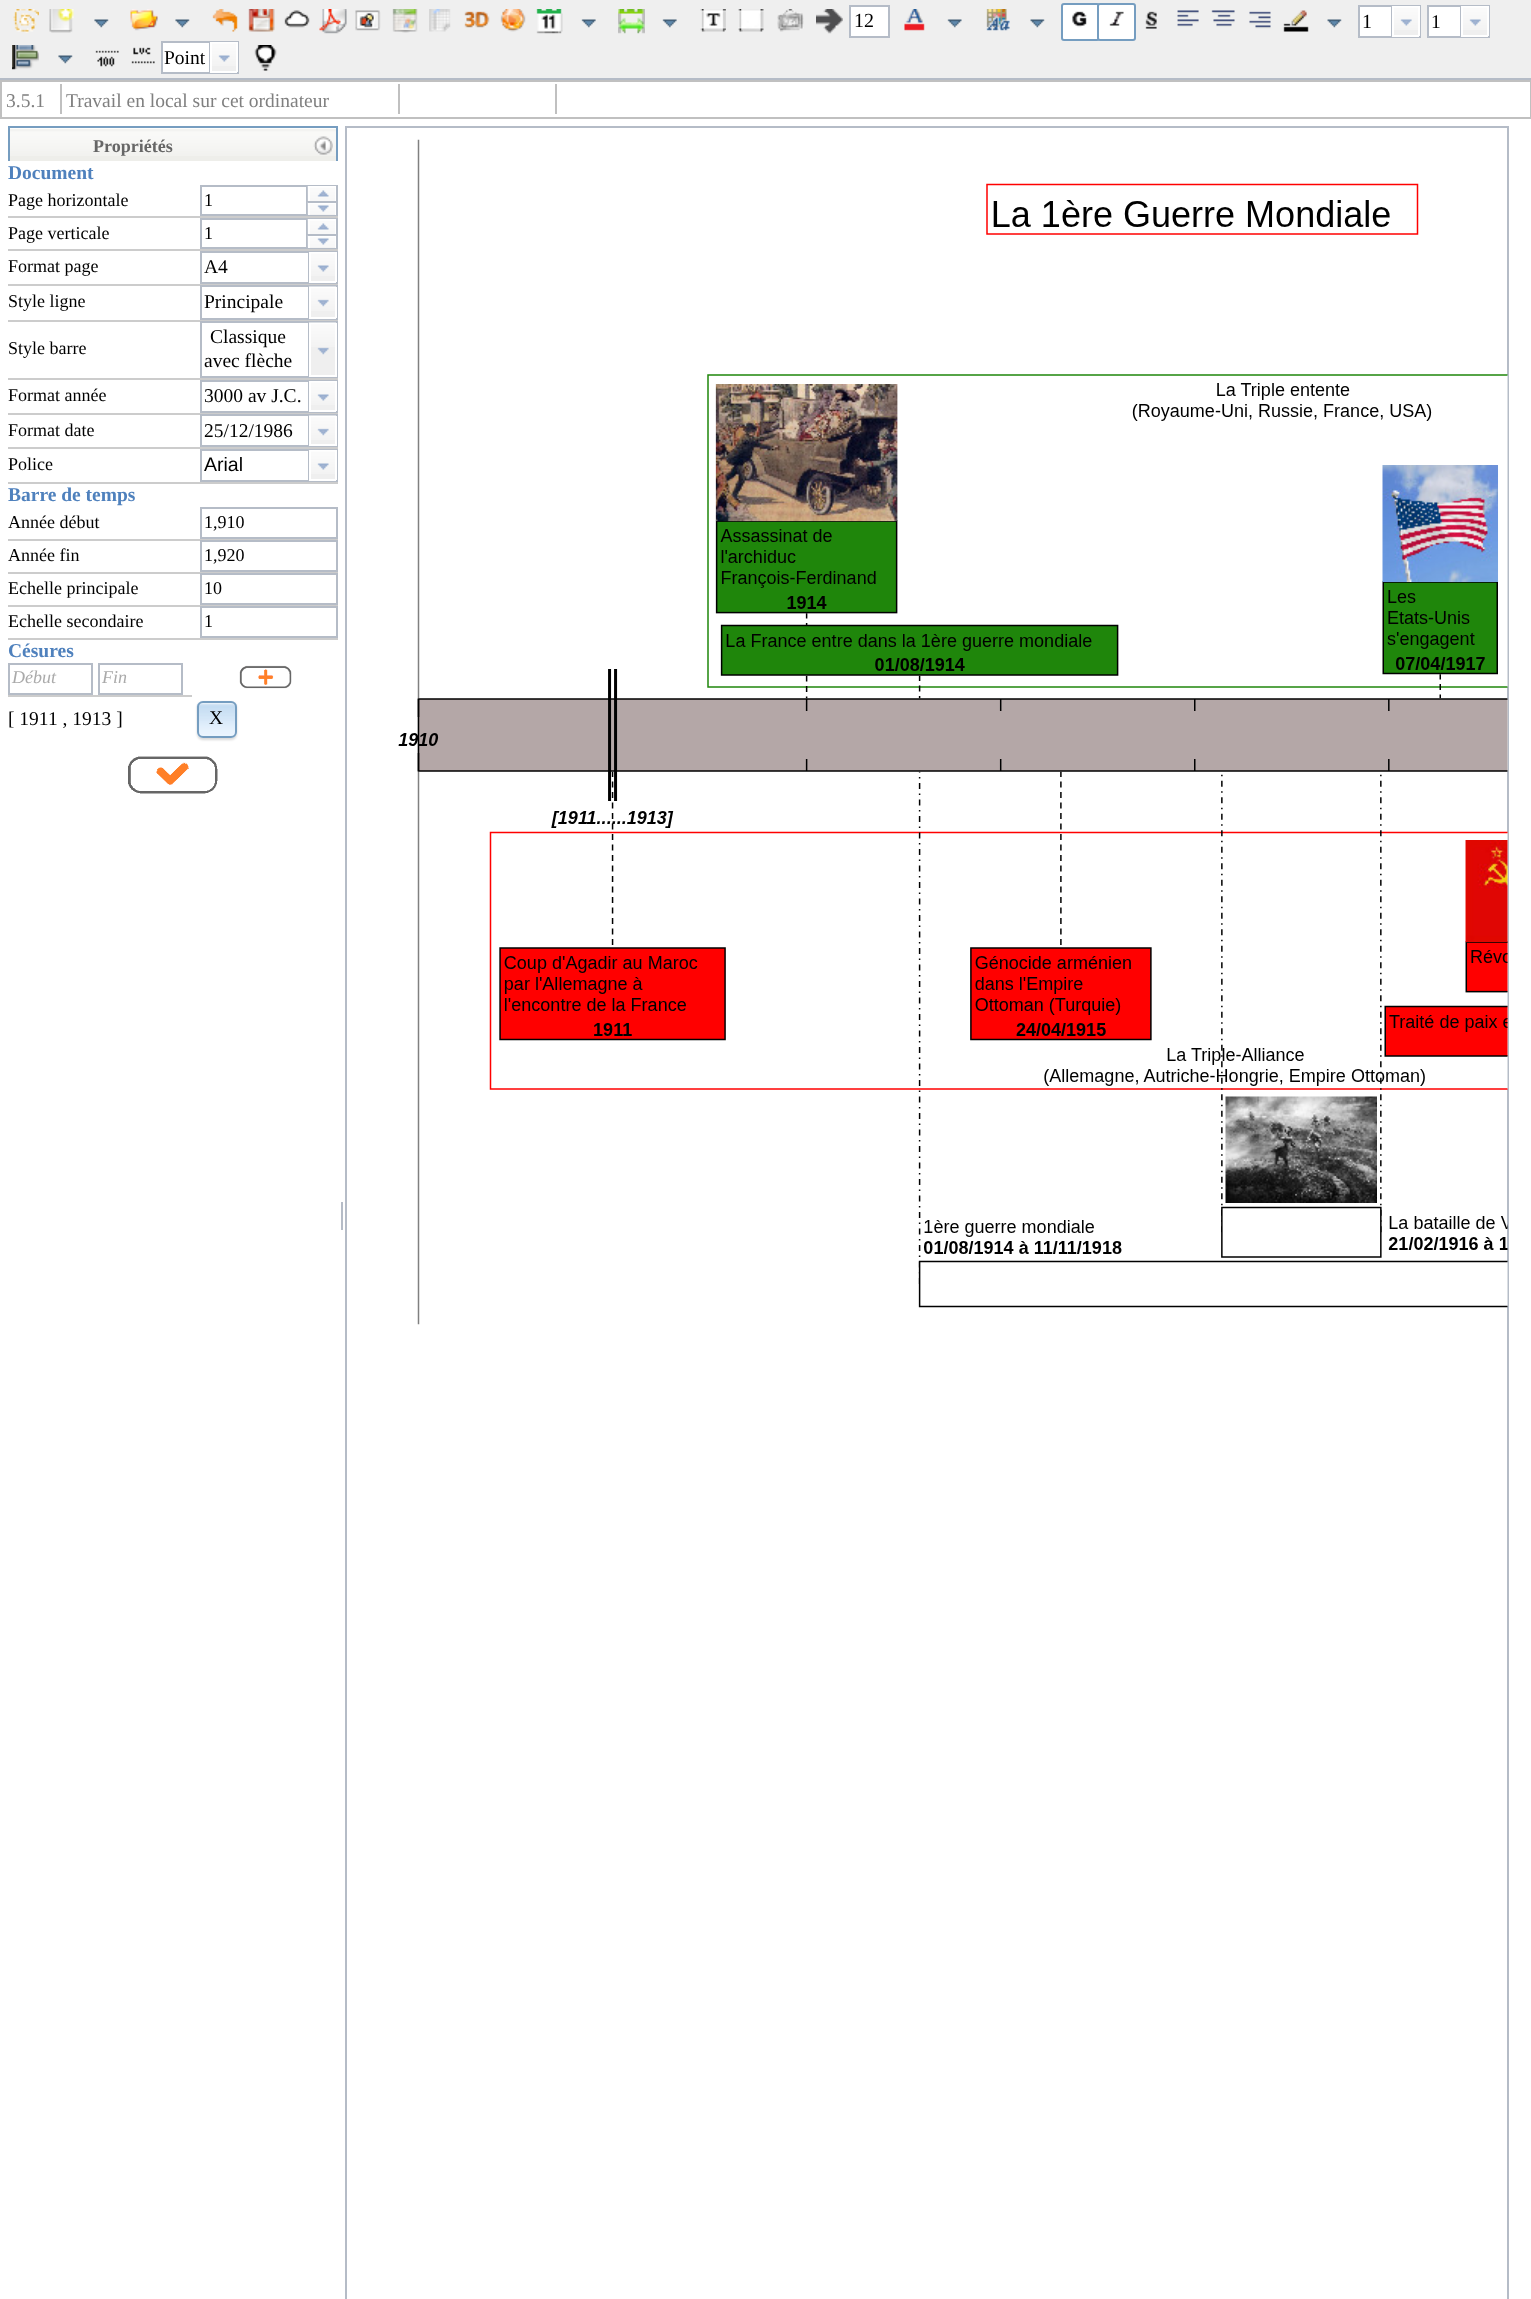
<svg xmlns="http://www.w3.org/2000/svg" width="1531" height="2299">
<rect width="100%" height="100%" fill="#fff"/>
<rect width="1531" height="78" fill="#efefef"/>
<rect y="78" width="1531" height="2" fill="#b5bcc7"/>
<image x="13" y="9" width="26" height="24" href="media/1.png"/>
<image x="49" y="9" width="25" height="24" href="media/2.png"/>
<image x="94" y="19" width="15" height="9" href="media/3.png"/>
<image x="130" y="9" width="28" height="22" href="media/4.png"/>
<image x="175" y="19" width="15" height="9" href="media/3.png"/>
<image x="212" y="9" width="26" height="23" href="media/5.png"/>
<image x="248" y="9" width="27" height="23" href="media/6.png"/>
<image x="284" y="10" width="26" height="18" href="media/7.png"/>
<image x="319" y="9" width="28" height="25" href="media/8.png"/>
<image x="355" y="10" width="26" height="21" href="media/9.png"/>
<image x="392" y="9" width="26" height="24" href="media/10.png"/>
<image x="429" y="9" width="22" height="23" href="media/11.png"/>
<image x="464" y="11" width="26" height="17" href="media/12.png"/>
<image x="500" y="9" width="26" height="23" href="media/13.png"/>
<image x="536" y="9" width="27" height="25" href="media/14.png"/>
<image x="581" y="19" width="15" height="9" href="media/15.png"/>
<image x="618" y="9" width="27" height="25" href="media/16.png"/>
<image x="662" y="19" width="15" height="9" href="media/15.png"/>
<image x="700" y="9" width="26" height="23" href="media/17.png"/>
<image x="738" y="9" width="26" height="23" href="media/18.png"/>
<image x="777" y="9" width="27" height="23" href="media/19.png"/>
<image x="816" y="9" width="27" height="25" href="media/20.png"/>
<rect x="850" y="6" width="39" height="31" fill="#fff" stroke="#b5bcc7" stroke-width="2"/>
<text x="854" y="27" style="font-family:Liberation Serif;font-size:20px;fill:#000">12</text>
<image x="904" y="9" width="21" height="22" href="media/21.png"/>
<image x="947" y="19" width="15" height="9" href="media/22.png"/>
<image x="986" y="9" width="24" height="22" href="media/23.png"/>
<image x="1030" y="19" width="15" height="9" href="media/24.png"/>
<rect x="1062" y="4" width="37" height="36" rx="2" fill="#fff" stroke="#759dc0" stroke-width="2"/>
<image x="1072" y="11" width="15" height="17" href="media/25.png"/>
<rect x="1098" y="4" width="37" height="36" rx="2" fill="#fff" stroke="#759dc0" stroke-width="2"/>
<image x="1109" y="11" width="15" height="15" href="media/26.png"/>
<image x="1145" y="11" width="12" height="18" href="media/27.png"/>
<image x="1177" y="10" width="22" height="17" href="media/28.png"/>
<image x="1211" y="10" width="24" height="17" href="media/29.png"/>
<image x="1249" y="11" width="22" height="18" href="media/30.png"/>
<image x="1283" y="10" width="26" height="22" href="media/31.png"/>
<image x="1327" y="19" width="15" height="9" href="media/32.png"/>
<rect x="1360" y="7" width="31" height="29" fill="#fff"/>
<rect x="1359" y="6" width="61" height="31" fill="none" stroke="#b5bcc7" stroke-width="2"/>
<rect x="1391" y="6" width="1" height="30" fill="#b5bcc7"/>
<text x="1362" y="28" style="font-family:Liberation Serif;font-size:20px;fill:#000">1</text>
<image x="1394" y="6" width="24" height="24" href="media/33.png"/>
<rect x="1418" y="6" width="2" height="30" fill="#fff"/>
<rect x="1392" y="35" width="27" height="2" fill="#fff"/>
<rect x="1392" y="6" width="2" height="30" fill="#fff"/>
<image x="1400" y="19" width="12" height="7" href="media/34.png"/>
<rect x="1429" y="7" width="31" height="29" fill="#fff"/>
<rect x="1428" y="6" width="61" height="31" fill="none" stroke="#b5bcc7" stroke-width="2"/>
<rect x="1460" y="6" width="1" height="30" fill="#b5bcc7"/>
<text x="1431" y="28" style="font-family:Liberation Serif;font-size:19.5px;fill:#000">1</text>
<image x="1463" y="6" width="24" height="24" href="media/35.png"/>
<rect x="1487" y="6" width="2" height="30" fill="#fff"/>
<rect x="1461" y="35" width="27" height="2" fill="#fff"/>
<rect x="1461" y="6" width="2" height="30" fill="#fff"/>
<image x="1469" y="19" width="12" height="7" href="media/34.png"/>
<image x="12" y="45" width="27" height="25" href="media/36.png"/>
<image x="58" y="55" width="15" height="9" href="media/3.png"/>
<image x="95" y="50" width="24" height="17" href="media/37.png"/>
<image x="131" y="47" width="24" height="17" href="media/38.png"/>
<rect x="163" y="43" width="46" height="29" fill="#fff"/>
<rect x="162" y="42" width="76" height="31" fill="none" stroke="#b5bcc7" stroke-width="2"/>
<rect x="209" y="42" width="1" height="30" fill="#b5bcc7"/>
<text x="164" y="64" style="font-family:Liberation Serif;font-size:19.5px;fill:#000">Point</text>
<image x="212" y="42" width="24" height="24" href="media/39.png"/>
<rect x="236" y="42" width="2" height="30" fill="#fff"/>
<rect x="210" y="71" width="27" height="2" fill="#fff"/>
<rect x="210" y="42" width="2" height="30" fill="#fff"/>
<image x="218" y="55" width="12" height="7" href="media/40.png"/>
<image x="254" y="45" width="23" height="26" href="media/41.png"/>
<rect x="1" y="81" width="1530" height="37" fill="none" stroke="#c0c0c0" stroke-width="2"/>
<rect x="60" y="84" width="2" height="30" fill="#c0c0c0"/>
<text x="6" y="107" style="font-family:Liberation Serif;font-size:19.5px;fill:#808080">3.5.1</text>
<rect x="398" y="84" width="2" height="30" fill="#c0c0c0"/>
<text x="66" y="107" style="font-family:Liberation Serif;font-size:19.5px;fill:#808080">Travail en local sur cet ordinateur</text>
<rect x="555" y="84" width="2" height="30" fill="#c0c0c0"/>
<rect x="10" y="128" width="326" height="33" fill="#eeeeea"/>
<image x="10" y="128" width="326" height="28" href="media/42.png"/>
<rect x="8" y="126" width="330" height="2" fill="#769dc0"/>
<rect x="336" y="126" width="2" height="35" fill="#769dc0"/>
<rect x="8" y="126" width="2" height="35" fill="#769dc0"/>
<text x="93" y="152" style="font-family:Liberation Serif;font-size:18px;font-weight:bold;fill:#666">Propriétés</text>
<image x="313" y="136" width="20" height="19" href="media/43.png"/>
<text x="8" y="179" style="font-family:Liberation Serif;font-size:19.5px;font-weight:bold;fill:#4f81bd">Document</text>
<rect x="8" y="216" width="330" height="2" fill="#ccc"/>
<text x="8" y="206" style="font-family:Liberation Serif;font-size:18px;fill:#000">Page horizontale</text>
<rect x="201" y="186" width="136" height="29" fill="none" stroke="#b5bcc7" stroke-width="2"/>
<text x="204" y="206" style="font-family:Liberation Serif;font-size:18px;fill:#000">1</text>
<rect x="306" y="186" width="2" height="29" fill="#b5bcc7"/>
<rect x="310" y="187" width="25" height="14" fill="#efefef"/>
<image x="307" y="186" width="28" height="15" href="media/44.png"/>
<image x="317" y="190" width="12" height="7" href="media/45.png"/>
<rect x="335" y="186" width="1" height="1" fill="#fff"/>
<rect x="310" y="203" width="25" height="12" fill="#efefef"/>
<image x="307" y="202" width="28" height="13" href="media/46.png"/>
<rect x="308" y="201" width="28" height="2" fill="#b5bcc7"/>
<image x="317" y="205" width="12" height="7" href="media/47.png"/>
<rect x="335" y="214" width="1" height="1" fill="#fff"/>
<rect x="308" y="214" width="2" height="1" fill="#fff"/>
<rect x="8" y="249" width="330" height="2" fill="#ccc"/>
<text x="8" y="239" style="font-family:Liberation Serif;font-size:18px;fill:#000">Page verticale</text>
<rect x="201" y="219" width="136" height="29" fill="none" stroke="#b5bcc7" stroke-width="2"/>
<text x="204" y="239" style="font-family:Liberation Serif;font-size:18px;fill:#000">1</text>
<rect x="306" y="219" width="2" height="29" fill="#b5bcc7"/>
<rect x="310" y="220" width="25" height="14" fill="#efefef"/>
<image x="307" y="219" width="28" height="15" href="media/44.png"/>
<image x="317" y="223" width="12" height="7" href="media/45.png"/>
<rect x="335" y="219" width="1" height="1" fill="#fff"/>
<rect x="310" y="236" width="25" height="12" fill="#efefef"/>
<image x="307" y="235" width="28" height="13" href="media/46.png"/>
<rect x="308" y="234" width="28" height="2" fill="#b5bcc7"/>
<image x="317" y="238" width="12" height="7" href="media/47.png"/>
<rect x="335" y="247" width="1" height="1" fill="#fff"/>
<rect x="308" y="247" width="2" height="1" fill="#fff"/>
<rect x="8" y="284" width="330" height="2" fill="#ccc"/>
<text x="8" y="272" style="font-family:Liberation Serif;font-size:18px;fill:#000">Format page</text>
<rect x="201" y="252" width="136" height="31" fill="none" stroke="#b5bcc7" stroke-width="2"/>
<rect x="308" y="252" width="1" height="30" fill="#b5bcc7"/>
<text x="204" y="273" style="font-family:Liberation Serif;font-size:19.5px;fill:#000">A4</text>
<rect x="311" y="253" width="24" height="28" fill="#efefef"/>
<image x="311" y="252" width="24" height="24" href="media/48.png"/>
<rect x="335" y="252" width="2" height="30" fill="#fff"/>
<rect x="309" y="282" width="27" height="1" fill="#fff"/>
<rect x="309" y="252" width="2" height="1" fill="#fff"/>
<image x="317" y="265" width="12" height="7" href="media/40.png"/>
<rect x="8" y="320" width="330" height="2" fill="#ccc"/>
<text x="8" y="307" style="font-family:Liberation Serif;font-size:18px;fill:#000">Style ligne</text>
<rect x="201" y="286" width="136" height="33" fill="none" stroke="#b5bcc7" stroke-width="2"/>
<rect x="308" y="287" width="1" height="31" fill="#b5bcc7"/>
<text x="204" y="308" style="font-family:Liberation Serif;font-size:19.5px;fill:#000">Principale</text>
<rect x="311" y="287" width="24" height="30" fill="#efefef"/>
<image x="309" y="286" width="27" height="25" href="media/49.png"/>
<rect x="336" y="287" width="1" height="31" fill="#fff"/>
<rect x="309" y="318" width="27" height="1" fill="#fff"/>
<image x="317" y="299" width="12" height="8" href="media/50.png"/>
<rect x="8" y="378" width="330" height="2" fill="#ccc"/>
<text x="8" y="354" style="font-family:Liberation Serif;font-size:18px;fill:#000">Style barre</text>
<rect x="201" y="322" width="136" height="55" fill="none" stroke="#b5bcc7" stroke-width="2"/>
<rect x="308" y="323" width="1" height="54" fill="#b5bcc7"/>
<text x="210" y="343" style="font-family:Liberation Serif;font-size:19.5px;fill:#000">Classique</text>
<text x="204" y="367" style="font-family:Liberation Serif;font-size:19.5px;fill:#000">avec flèche</text>
<rect x="311" y="323" width="24" height="52" fill="#efefef"/>
<image x="309" y="322" width="27" height="25" href="media/51.png"/>
<rect x="335" y="323" width="2" height="54" fill="#fff"/>
<rect x="309" y="376" width="27" height="1" fill="#fff"/>
<image x="317" y="347" width="12" height="8" href="media/52.png"/>
<rect x="8" y="413" width="330" height="2" fill="#ccc"/>
<text x="8" y="401" style="font-family:Liberation Serif;font-size:18px;fill:#000">Format année</text>
<rect x="201" y="381" width="136" height="31" fill="none" stroke="#b5bcc7" stroke-width="2"/>
<rect x="308" y="381" width="1" height="30" fill="#b5bcc7"/>
<text x="204" y="402" style="font-family:Liberation Serif;font-size:19.5px;fill:#000">3000 av J.C.</text>
<rect x="311" y="382" width="24" height="28" fill="#efefef"/>
<image x="311" y="381" width="24" height="24" href="media/53.png"/>
<rect x="335" y="381" width="2" height="30" fill="#fff"/>
<rect x="309" y="411" width="27" height="1" fill="#fff"/>
<rect x="309" y="381" width="2" height="1" fill="#fff"/>
<image x="317" y="394" width="12" height="7" href="media/54.png"/>
<rect x="8" y="447" width="330" height="2" fill="#ccc"/>
<text x="8" y="436" style="font-family:Liberation Serif;font-size:18px;fill:#000">Format date</text>
<rect x="201" y="415" width="136" height="31" fill="none" stroke="#b5bcc7" stroke-width="2"/>
<rect x="308" y="416" width="1" height="30" fill="#b5bcc7"/>
<text x="204" y="437" style="font-family:Liberation Serif;font-size:19.5px;fill:#000">25/12/1986</text>
<rect x="311" y="416" width="24" height="28" fill="#efefef"/>
<image x="309" y="415" width="27" height="25" href="media/55.png"/>
<rect x="335" y="416" width="2" height="30" fill="#fff"/>
<rect x="309" y="445" width="27" height="1" fill="#fff"/>
<image x="317" y="428" width="12" height="8" href="media/50.png"/>
<rect x="8" y="482" width="330" height="2" fill="#ccc"/>
<text x="8" y="470" style="font-family:Liberation Serif;font-size:18px;fill:#000">Police</text>
<rect x="201" y="450" width="136" height="31" fill="none" stroke="#b5bcc7" stroke-width="2"/>
<rect x="308" y="450" width="1" height="30" fill="#b5bcc7"/>
<text x="204" y="471" style="font-family:Liberation Sans;font-size:19.5px;fill:#000">Arial</text>
<rect x="311" y="451" width="24" height="28" fill="#efefef"/>
<image x="311" y="450" width="24" height="24" href="media/56.png"/>
<rect x="335" y="450" width="2" height="30" fill="#fff"/>
<rect x="309" y="480" width="27" height="1" fill="#fff"/>
<rect x="309" y="450" width="2" height="1" fill="#fff"/>
<image x="317" y="463" width="12" height="7" href="media/54.png"/>
<text x="8" y="501" style="font-family:Liberation Serif;font-size:19.5px;font-weight:bold;fill:#4f81bd">Barre de temps</text>
<rect x="8" y="539" width="330" height="2" fill="#ccc"/>
<text x="8" y="528" style="font-family:Liberation Serif;font-size:18px;fill:#000">Année début</text>
<rect x="201" y="508" width="136" height="30" fill="none" stroke="#b5bcc7" stroke-width="2"/>
<text x="204" y="528" style="font-family:Liberation Serif;font-size:18px;fill:#000">1,910</text>
<rect x="8" y="572" width="330" height="2" fill="#ccc"/>
<text x="8" y="561" style="font-family:Liberation Serif;font-size:18px;fill:#000">Année fin</text>
<rect x="201" y="541" width="136" height="30" fill="none" stroke="#b5bcc7" stroke-width="2"/>
<text x="204" y="561" style="font-family:Liberation Serif;font-size:18px;fill:#000">1,920</text>
<rect x="8" y="605" width="330" height="2" fill="#ccc"/>
<text x="8" y="594" style="font-family:Liberation Serif;font-size:18px;fill:#000">Echelle principale</text>
<rect x="201" y="574" width="136" height="30" fill="none" stroke="#b5bcc7" stroke-width="2"/>
<text x="204" y="594" style="font-family:Liberation Serif;font-size:18px;fill:#000">10</text>
<rect x="8" y="638" width="330" height="2" fill="#ccc"/>
<text x="8" y="627" style="font-family:Liberation Serif;font-size:18px;fill:#000">Echelle secondaire</text>
<rect x="201" y="607" width="136" height="30" fill="none" stroke="#b5bcc7" stroke-width="2"/>
<text x="204" y="627" style="font-family:Liberation Serif;font-size:18px;fill:#000">1</text>
<text x="8" y="657" style="font-family:Liberation Serif;font-size:19.5px;font-weight:bold;fill:#4f81bd">Césures</text>
<rect x="8" y="695" width="184" height="2" fill="#ccc"/>
<rect x="9" y="664" width="83" height="30" fill="none" stroke="#b5bcc7" stroke-width="2"/>
<text x="12" y="683" style="font-family:Liberation Serif;font-size:18px;font-style:italic;fill:#aaa">Début</text>
<rect x="99" y="664" width="83" height="30" fill="none" stroke="#b5bcc7" stroke-width="2"/>
<text x="102" y="683" style="font-family:Liberation Serif;font-size:18px;font-style:italic;fill:#aaa">Fin</text>
<image x="239" y="665" width="53" height="24" href="media/57.png"/>
<text x="8" y="725" style="font-family:Liberation Serif;font-size:19.5px;fill:#000">[ 1911 , 1913 ]</text>
<rect x="197" y="702" width="40" height="38" rx="6" fill="#00000026" filter="blur(1px)"/>
<rect x="197" y="701" width="40" height="37" rx="6" fill="#e5f2fe"/>
<image x="196" y="702" width="41" height="36" href="media/58.png"/>
<rect x="198" y="702" width="38" height="35" rx="5" fill="none" stroke="#759dc0" stroke-width="2"/>
<text x="209" y="724" style="font-family:Liberation Serif;font-size:19.5px;fill:#000">X</text>
<image x="128" y="756" width="90" height="38" href="media/59.png"/>
<rect x="346" y="127" width="1162" height="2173" fill="none" stroke="#b5bcc7" stroke-width="2"/>
<image x="398" y="139" width="1110" height="1186" href="media/60.png"/>
<rect x="341" y="1202" width="2" height="28" fill="#b5bcc7"/>
</svg>
